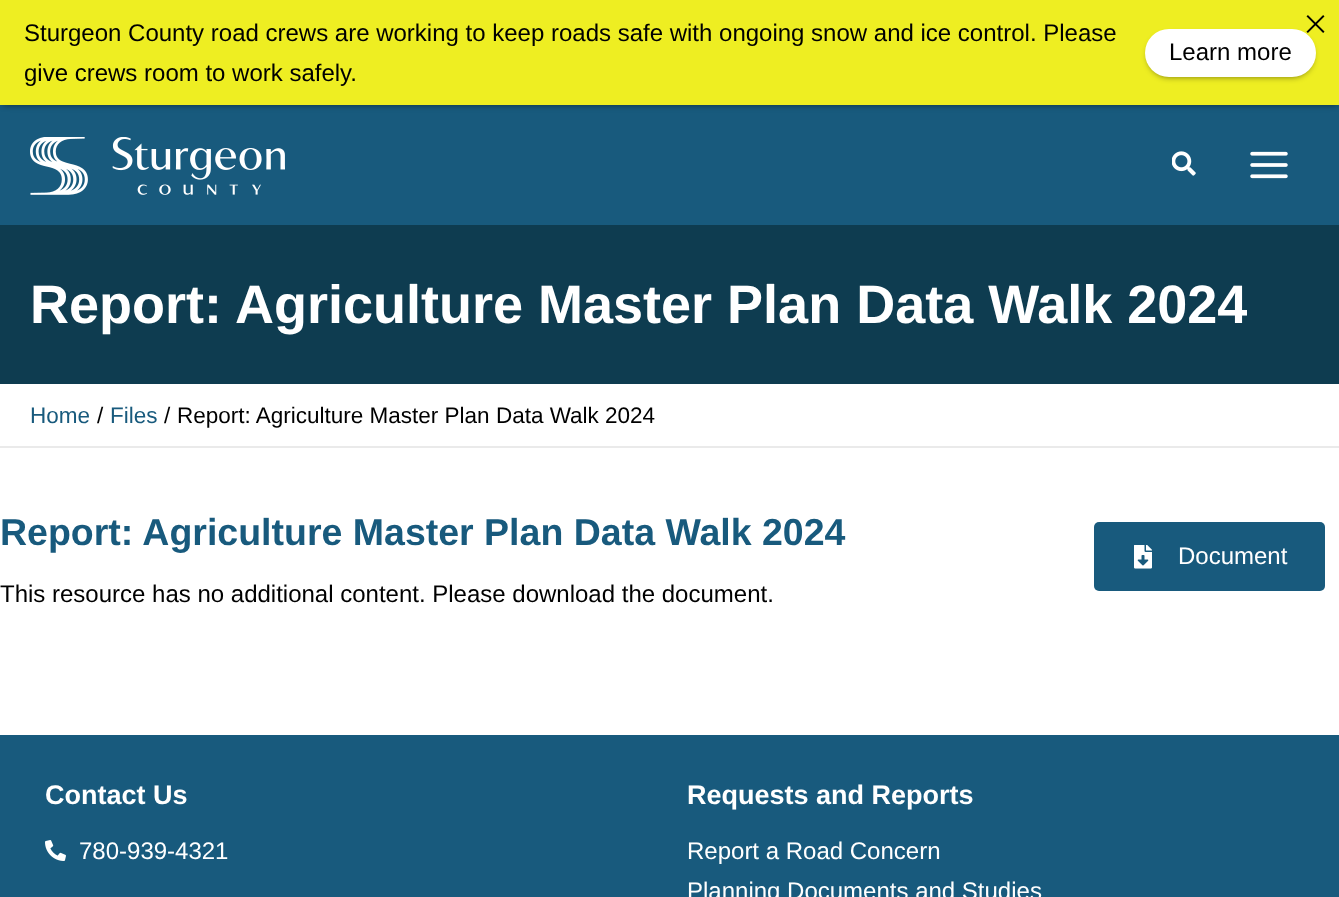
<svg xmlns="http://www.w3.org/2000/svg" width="1339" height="897">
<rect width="100%" height="100%" fill="#fff"/>
<rect y="105" width="1339" height="120" fill="#185a7d"/>
<rect x="3" y="6" width="1334" height="99" fill="#00000080" filter="blur(3px)"/>
<rect width="1339" height="105" fill="#ee2"/>
<text x="24" y="41" style="font-family:Liberation Sans;font-size:24px;fill:#000">Sturgeon County road crews are working to keep roads safe with ongoing snow and ice control. Please</text>
<text x="24" y="81" style="font-family:Liberation Sans;font-size:24px;fill:#000">give crews room to work safely.</text>
<rect x="1148" y="35" width="165" height="42" rx="21" fill="#00000080" filter="blur(3px)"/>
<rect x="1145" y="29" width="171" height="48" rx="24" fill="#fff"/>
<text x="1169" y="60" style="font-family:Liberation Sans;font-size:24px;fill:#000">Learn more</text>
<image x="1306" y="15" width="19" height="18" href="media/1.png"/>
<image x="30" y="137" width="255" height="58" href="media/2.png"/>
<image x="1172" y="151" width="24" height="25" href="media/3.png"/>
<image x="1250" y="151" width="38" height="28" href="media/4.png"/>
<rect y="225" width="1339" height="159" fill="#0e3c50"/>
<text x="30" y="323" style="font-family:Liberation Sans;font-size:54px;font-weight:bold;fill:#fff">Report: Agriculture Master Plan Data Walk 2024</text>
<rect y="446" width="1339" height="2" fill="#eaeaea"/>
<text x="30" y="423" style="font-family:Liberation Sans;font-size:22.5px;fill:#185a7d">Home</text>
<text x="97" y="423" style="font-family:Liberation Sans;font-size:22.5px;fill:#000">/</text>
<text x="110" y="423" style="font-family:Liberation Sans;font-size:22.5px;fill:#185a7d">Files</text>
<text x="164" y="423" style="font-family:Liberation Sans;font-size:22.5px;fill:#000">/</text>
<text x="177" y="423" style="font-family:Liberation Sans;font-size:22.5px;fill:#000">Report: Agriculture Master Plan Data Walk 2024</text>
<text x="0" y="545" style="font-family:Liberation Sans;font-size:37.5px;font-weight:bold;fill:#185a7d">Report: Agriculture Master Plan Data Walk 2024</text>
<text x="0" y="602" style="font-family:Liberation Sans;font-size:24px;fill:#000">This resource has no additional content. Please download the document.</text>
<rect x="1094" y="522" width="231" height="69" rx="5" fill="#185a7d"/>
<image x="1134" y="545" width="18" height="24" href="media/5.png"/>
<text x="1178" y="564" style="font-family:Liberation Sans;font-size:24px;fill:#fff">Document</text>
<rect y="735" width="1339" height="162" fill="#185a7d"/>
<text x="45" y="804" style="font-family:Liberation Sans;font-size:27px;font-weight:bold;fill:#fff">Contact Us</text>
<image x="45" y="840" width="21" height="21" href="media/6.png"/>
<text x="79" y="859" style="font-family:Liberation Sans;font-size:24px;fill:#fff">780-939-4321</text>
<text x="687" y="804" style="font-family:Liberation Sans;font-size:27px;font-weight:bold;fill:#fff">Requests and Reports</text>
<text x="687" y="859" style="font-family:Liberation Sans;font-size:24px;fill:#fff">Report a Road Concern</text>
<text x="687" y="899" style="font-family:Liberation Sans;font-size:24px;fill:#fff">Planning Documents and Studies</text>
</svg>
